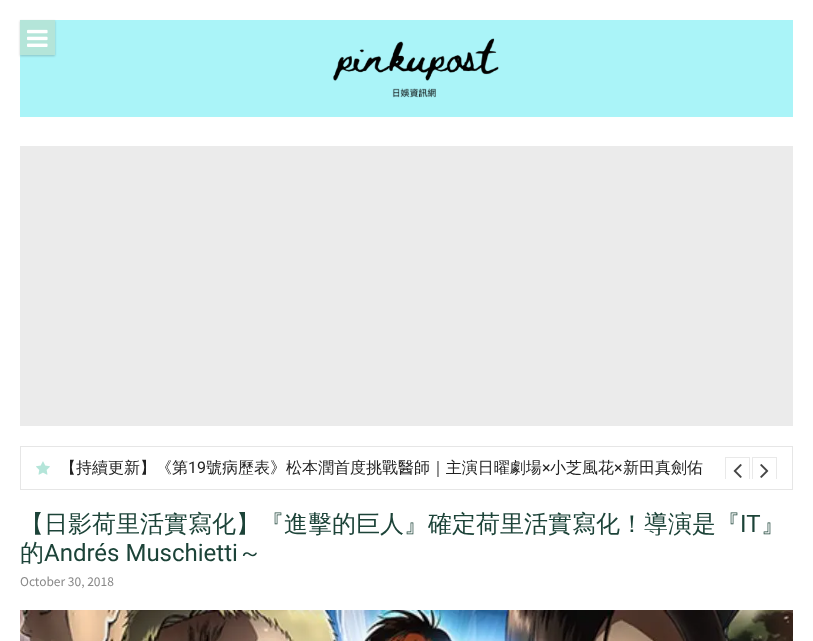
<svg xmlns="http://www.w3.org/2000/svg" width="813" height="641">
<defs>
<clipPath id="clip1"><rect x="50" y="457" width="727" height="22"/></clipPath>
</defs>
<rect width="100%" height="100%" fill="#fff"/>
<image x="20" y="20" width="773" height="97" href="media/2.png"/>
<rect x="20" y="21" width="35" height="35" fill="#00000033" filter="blur(1px)"/>
<rect x="20" y="20" width="35" height="35" fill="#b4e5d9"/>
<image x="27" y="29" width="21" height="18" href="media/1.png"/>
<rect x="20" y="146" width="773" height="280" fill="#ebebeb"/>
<rect x="20.5" y="446.5" width="772" height="43" fill="none" stroke="#e6e6e6"/>
<image x="36" y="461" width="14" height="14" href="media/3.png"/>
<text x="60" y="473" style="font-family:WenQuanYi Zen Hei;font-size:16px;font-weight:500;fill:#222">【持續更新】《第</text>
<text x="188" y="473" style="font-family:Roboto;font-size:16px;fill:#222">19</text>
<text x="206" y="473" style="font-family:WenQuanYi Zen Hei;font-size:16px;font-weight:500;fill:#222">號病歷表》松本潤首度挑戰醫師｜主演日曜劇場</text>
<text x="542" y="473" style="font-family:Roboto;font-size:16px;fill:#222">×</text>
<text x="550" y="473" style="font-family:WenQuanYi Zen Hei;font-size:16px;font-weight:500;fill:#222">小芝風花</text>
<text x="614" y="473" style="font-family:Roboto;font-size:16px;fill:#222">×</text>
<text x="623" y="473" style="font-family:WenQuanYi Zen Hei;font-size:16px;font-weight:500;fill:#222">新田真劍佑</text>
<g clip-path="url(#clip1)">
<rect x="725.5" y="457.5" width="24" height="28" fill="none" stroke="#e9e9e9"/>
</g>
<image x="733" y="464" width="9" height="14" href="media/4.png"/>
<g clip-path="url(#clip1)">
<rect x="752.5" y="457.5" width="24" height="28" fill="none" stroke="#e9e9e9"/>
</g>
<image x="760" y="464" width="9" height="14" href="media/5.png"/>
<text x="20" y="532" style="font-family:WenQuanYi Zen Hei;font-size:24px;font-weight:500;fill:#1c4338">【日影荷里活實寫化】『進擊的巨人』確定荷里活實寫化！導演是『</text>
<text x="740" y="532" style="font-family:Roboto;font-size:24px;fill:#1c4338">IT</text>
<text x="761" y="532" style="font-family:WenQuanYi Zen Hei;font-size:24px;font-weight:500;fill:#1c4338">』</text>
<text x="20" y="561" style="font-family:WenQuanYi Zen Hei;font-size:24px;font-weight:500;fill:#1c4338">的</text>
<text x="44" y="561" style="font-family:Roboto;font-size:24px;fill:#1c4338">Andrés Muschietti</text>
<text x="238" y="561" style="font-family:WenQuanYi Zen Hei;font-size:24px;font-weight:500;fill:#1c4338">～</text>
<text x="20" y="586" style="font-family:Noto Sans TC;font-size:12px;fill:#888">October 30, 2018</text>
<image x="20" y="610" width="773" height="31" href="media/6.png"/>
</svg>
